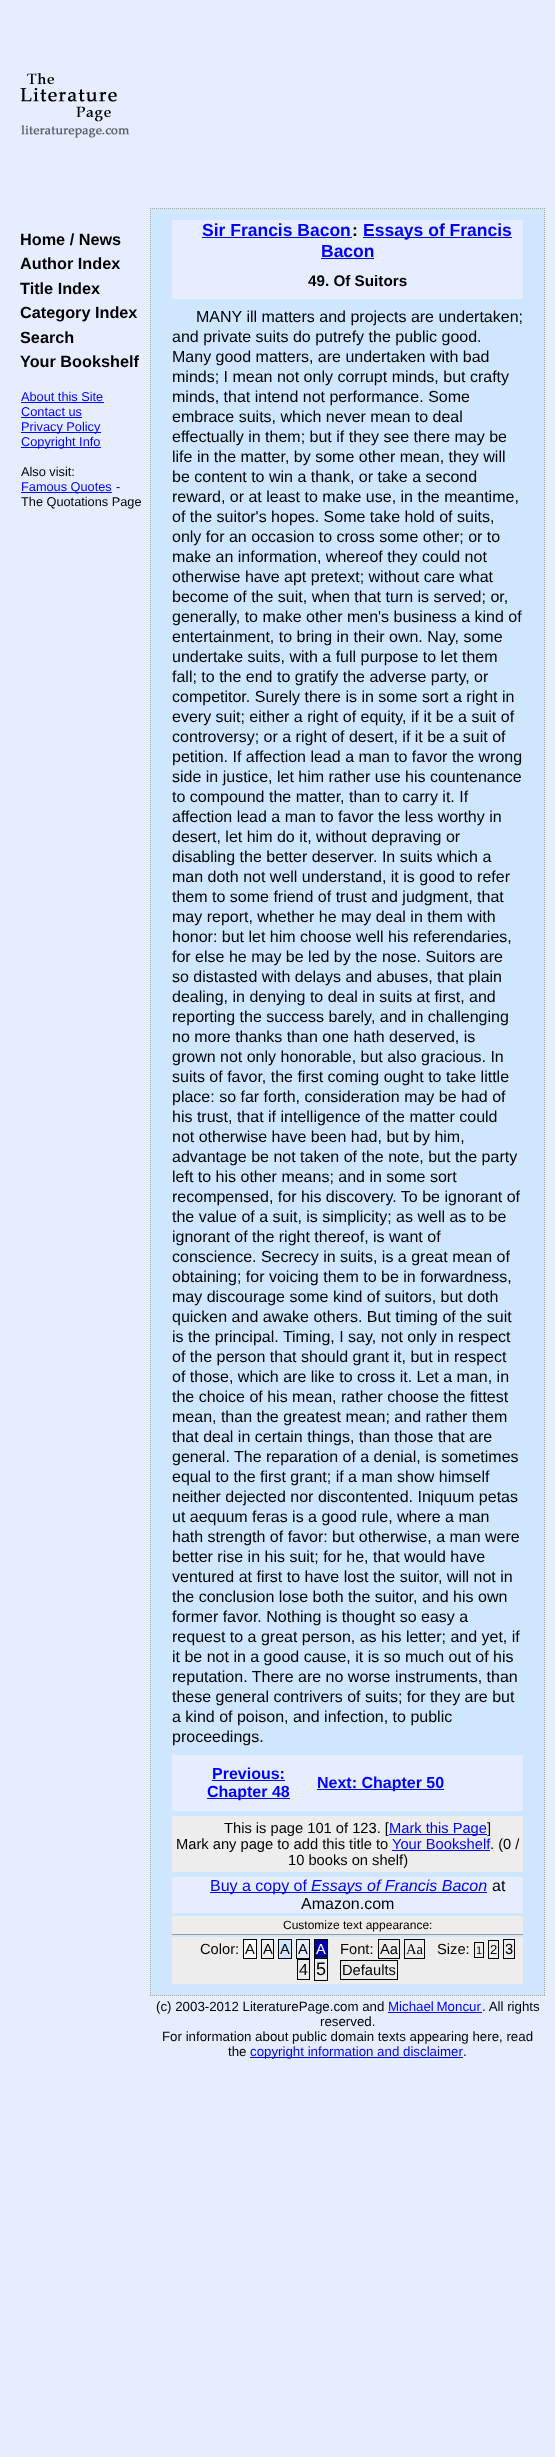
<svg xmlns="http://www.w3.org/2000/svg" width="555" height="2457">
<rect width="100%" height="100%" fill="#e6edff"/>
<image x="20" y="73" width="110" height="65" href="media/1.png"/>
<text x="20" y="245" style="font-family:Liberation Sans;font-size:16.25px;font-weight:bold;fill:#000">Home / News</text>
<text x="20" y="269" style="font-family:Liberation Sans;font-size:16.25px;font-weight:bold;fill:#000">Author Index</text>
<text x="20" y="294" style="font-family:Liberation Sans;font-size:16.25px;font-weight:bold;fill:#000">Title Index</text>
<text x="20" y="318" style="font-family:Liberation Sans;font-size:16.25px;font-weight:bold;fill:#000">Category Index</text>
<text x="20" y="343" style="font-family:Liberation Sans;font-size:16.25px;font-weight:bold;fill:#000">Search</text>
<text x="20" y="367" style="font-family:Liberation Sans;font-size:16.25px;font-weight:bold;fill:#000">Your Bookshelf</text>
<text x="21" y="401" style="font-family:Liberation Sans;font-size:12.75px;fill:#00f">About this Site</text>
<rect x="21" y="402" width="83" height="1" fill="#00f"/>
<text x="21" y="416" style="font-family:Liberation Sans;font-size:12.75px;fill:#00f">Contact us</text>
<rect x="21" y="417" width="61" height="1" fill="#00f"/>
<rect x="21" y="432" width="80" height="1" fill="#00f"/>
<text x="21" y="431" style="font-family:Liberation Sans;font-size:12.75px;fill:#00f">Privacy Policy</text>
<rect x="21" y="447" width="80" height="1" fill="#00f"/>
<text x="21" y="446" style="font-family:Liberation Sans;font-size:12.75px;fill:#00f">Copyright Info</text>
<text x="21" y="476" style="font-family:Liberation Sans;font-size:12.75px;fill:#000">Also visit:</text>
<rect x="21" y="492" width="91" height="1" fill="#00f"/>
<text x="21" y="491" style="font-family:Liberation Sans;font-size:12.75px;fill:#00f">Famous Quotes</text>
<text x="116" y="491" style="font-family:Liberation Sans;font-size:12.75px;fill:#000">-</text>
<text x="21" y="506" style="font-family:Liberation Sans;font-size:12.75px;fill:#000">The Quotations Page</text>
<rect x="150" y="208" width="395" height="1788" fill="#cee7ff"/>
<path d="M150 208.5h395" fill="none" stroke="#a6ad9f" stroke-dasharray="1 1"/>
<path d="M544.5 208v1788" fill="none" stroke="#a6ad9f" stroke-dasharray="1 1"/>
<path d="M150 1995.5h395" fill="none" stroke="#a6ad9f" stroke-dasharray="1 1"/>
<path d="M150.5 208v1788" fill="none" stroke="#a6ad9f" stroke-dasharray="1 1"/>
<rect x="172" y="220" width="351" height="79" fill="#e6edff"/>
<text x="202" y="236" style="font-family:Liberation Sans;font-size:17.5px;font-weight:bold;fill:#00f">Sir Francis Bacon</text>
<rect x="202" y="237" width="150" height="1" fill="#00f"/>
<text x="352" y="236" style="font-family:Liberation Sans;font-size:17.5px;font-weight:bold;fill:#000">:</text>
<rect x="363" y="237" width="149" height="1" fill="#00f"/>
<text x="363" y="236" style="font-family:Liberation Sans;font-size:17.5px;font-weight:bold;fill:#00f">Essays of Francis</text>
<text x="321" y="257" style="font-family:Liberation Sans;font-size:17.5px;font-weight:bold;fill:#00f">Bacon</text>
<rect x="321" y="258" width="53" height="1" fill="#00f"/>
<text x="308" y="286" style="font-family:Liberation Sans;font-size:15.25px;font-weight:bold;fill:#000">49. Of Suitors</text>
<text x="196" y="322" style="font-family:Liberation Sans;font-size:16px;fill:#000">MANY ill matters and projects are undertaken;</text>
<text x="172" y="342" style="font-family:Liberation Sans;font-size:16px;fill:#000">and private suits do putrefy the public good.</text>
<text x="172" y="362" style="font-family:Liberation Sans;font-size:16px;fill:#000">Many good matters, are undertaken with bad</text>
<text x="172" y="382" style="font-family:Liberation Sans;font-size:16px;fill:#000">minds; I mean not only corrupt minds, but crafty</text>
<text x="172" y="402" style="font-family:Liberation Sans;font-size:16px;fill:#000">minds, that intend not performance. Some</text>
<text x="172" y="422" style="font-family:Liberation Sans;font-size:16px;fill:#000">embrace suits, which never mean to deal</text>
<text x="172" y="442" style="font-family:Liberation Sans;font-size:16px;fill:#000">effectually in them; but if they see there may be</text>
<text x="172" y="462" style="font-family:Liberation Sans;font-size:16px;fill:#000">life in the matter, by some other mean, they will</text>
<text x="172" y="482" style="font-family:Liberation Sans;font-size:16px;fill:#000">be content to win a thank, or take a second</text>
<text x="172" y="502" style="font-family:Liberation Sans;font-size:16px;fill:#000">reward, or at least to make use, in the meantime,</text>
<text x="172" y="522" style="font-family:Liberation Sans;font-size:16px;fill:#000">of the suitor's hopes. Some take hold of suits,</text>
<text x="172" y="542" style="font-family:Liberation Sans;font-size:16px;fill:#000">only for an occasion to cross some other; or to</text>
<text x="172" y="562" style="font-family:Liberation Sans;font-size:16px;fill:#000">make an information, whereof they could not</text>
<text x="172" y="582" style="font-family:Liberation Sans;font-size:16px;fill:#000">otherwise have apt pretext; without care what</text>
<text x="172" y="602" style="font-family:Liberation Sans;font-size:16px;fill:#000">become of the suit, when that turn is served; or,</text>
<text x="172" y="622" style="font-family:Liberation Sans;font-size:16px;fill:#000">generally, to make other men's business a kind of</text>
<text x="172" y="642" style="font-family:Liberation Sans;font-size:16px;fill:#000">entertainment, to bring in their own. Nay, some</text>
<text x="172" y="662" style="font-family:Liberation Sans;font-size:16px;fill:#000">undertake suits, with a full purpose to let them</text>
<text x="172" y="682" style="font-family:Liberation Sans;font-size:16px;fill:#000">fall; to the end to gratify the adverse party, or</text>
<text x="172" y="702" style="font-family:Liberation Sans;font-size:16px;fill:#000">competitor. Surely there is in some sort a right in</text>
<text x="172" y="722" style="font-family:Liberation Sans;font-size:16px;fill:#000">every suit; either a right of equity, if it be a suit of</text>
<text x="172" y="742" style="font-family:Liberation Sans;font-size:16px;fill:#000">controversy; or a right of desert, if it be a suit of</text>
<text x="172" y="762" style="font-family:Liberation Sans;font-size:16px;fill:#000">petition. If affection lead a man to favor the wrong</text>
<text x="172" y="782" style="font-family:Liberation Sans;font-size:16px;fill:#000">side in justice, let him rather use his countenance</text>
<text x="172" y="802" style="font-family:Liberation Sans;font-size:16px;fill:#000">to compound the matter, than to carry it. If</text>
<text x="172" y="822" style="font-family:Liberation Sans;font-size:16px;fill:#000">affection lead a man to favor the less worthy in</text>
<text x="172" y="842" style="font-family:Liberation Sans;font-size:16px;fill:#000">desert, let him do it, without depraving or</text>
<text x="172" y="862" style="font-family:Liberation Sans;font-size:16px;fill:#000">disabling the better deserver. In suits which a</text>
<text x="172" y="882" style="font-family:Liberation Sans;font-size:16px;fill:#000">man doth not well understand, it is good to refer</text>
<text x="172" y="902" style="font-family:Liberation Sans;font-size:16px;fill:#000">them to some friend of trust and judgment, that</text>
<text x="172" y="922" style="font-family:Liberation Sans;font-size:16px;fill:#000">may report, whether he may deal in them with</text>
<text x="172" y="942" style="font-family:Liberation Sans;font-size:16px;fill:#000">honor: but let him choose well his referendaries,</text>
<text x="172" y="962" style="font-family:Liberation Sans;font-size:16px;fill:#000">for else he may be led by the nose. Suitors are</text>
<text x="172" y="982" style="font-family:Liberation Sans;font-size:16px;fill:#000">so distasted with delays and abuses, that plain</text>
<text x="172" y="1002" style="font-family:Liberation Sans;font-size:16px;fill:#000">dealing, in denying to deal in suits at first, and</text>
<text x="172" y="1022" style="font-family:Liberation Sans;font-size:16px;fill:#000">reporting the success barely, and in challenging</text>
<text x="172" y="1042" style="font-family:Liberation Sans;font-size:16px;fill:#000">no more thanks than one hath deserved, is</text>
<text x="172" y="1062" style="font-family:Liberation Sans;font-size:16px;fill:#000">grown not only honorable, but also gracious. In</text>
<text x="172" y="1082" style="font-family:Liberation Sans;font-size:16px;fill:#000">suits of favor, the first coming ought to take little</text>
<text x="172" y="1102" style="font-family:Liberation Sans;font-size:16px;fill:#000">place: so far forth, consideration may be had of</text>
<text x="172" y="1122" style="font-family:Liberation Sans;font-size:16px;fill:#000">his trust, that if intelligence of the matter could</text>
<text x="172" y="1142" style="font-family:Liberation Sans;font-size:16px;fill:#000">not otherwise have been had, but by him,</text>
<text x="172" y="1162" style="font-family:Liberation Sans;font-size:16px;fill:#000">advantage be not taken of the note, but the party</text>
<text x="172" y="1182" style="font-family:Liberation Sans;font-size:16px;fill:#000">left to his other means; and in some sort</text>
<text x="172" y="1202" style="font-family:Liberation Sans;font-size:16px;fill:#000">recompensed, for his discovery. To be ignorant of</text>
<text x="172" y="1222" style="font-family:Liberation Sans;font-size:16px;fill:#000">the value of a suit, is simplicity; as well as to be</text>
<text x="172" y="1242" style="font-family:Liberation Sans;font-size:16px;fill:#000">ignorant of the right thereof, is want of</text>
<text x="172" y="1262" style="font-family:Liberation Sans;font-size:16px;fill:#000">conscience. Secrecy in suits, is a great mean of</text>
<text x="172" y="1282" style="font-family:Liberation Sans;font-size:16px;fill:#000">obtaining; for voicing them to be in forwardness,</text>
<text x="172" y="1302" style="font-family:Liberation Sans;font-size:16px;fill:#000">may discourage some kind of suitors, but doth</text>
<text x="172" y="1322" style="font-family:Liberation Sans;font-size:16px;fill:#000">quicken and awake others. But timing of the suit</text>
<text x="172" y="1342" style="font-family:Liberation Sans;font-size:16px;fill:#000">is the principal. Timing, I say, not only in respect</text>
<text x="172" y="1362" style="font-family:Liberation Sans;font-size:16px;fill:#000">of the person that should grant it, but in respect</text>
<text x="172" y="1382" style="font-family:Liberation Sans;font-size:16px;fill:#000">of those, which are like to cross it. Let a man, in</text>
<text x="172" y="1402" style="font-family:Liberation Sans;font-size:16px;fill:#000">the choice of his mean, rather choose the fittest</text>
<text x="172" y="1422" style="font-family:Liberation Sans;font-size:16px;fill:#000">mean, than the greatest mean; and rather them</text>
<text x="172" y="1442" style="font-family:Liberation Sans;font-size:16px;fill:#000">that deal in certain things, than those that are</text>
<text x="172" y="1462" style="font-family:Liberation Sans;font-size:16px;fill:#000">general. The reparation of a denial, is sometimes</text>
<text x="172" y="1482" style="font-family:Liberation Sans;font-size:16px;fill:#000">equal to the first grant; if a man show himself</text>
<text x="172" y="1502" style="font-family:Liberation Sans;font-size:16px;fill:#000">neither dejected nor discontented. Iniquum petas</text>
<text x="172" y="1522" style="font-family:Liberation Sans;font-size:16px;fill:#000">ut aequum feras is a good rule, where a man</text>
<text x="172" y="1542" style="font-family:Liberation Sans;font-size:16px;fill:#000">hath strength of favor: but otherwise, a man were</text>
<text x="172" y="1562" style="font-family:Liberation Sans;font-size:16px;fill:#000">better rise in his suit; for he, that would have</text>
<text x="172" y="1582" style="font-family:Liberation Sans;font-size:16px;fill:#000">ventured at first to have lost the suitor, will not in</text>
<text x="172" y="1602" style="font-family:Liberation Sans;font-size:16px;fill:#000">the conclusion lose both the suitor, and his own</text>
<text x="172" y="1622" style="font-family:Liberation Sans;font-size:16px;fill:#000">former favor. Nothing is thought so easy a</text>
<text x="172" y="1642" style="font-family:Liberation Sans;font-size:16px;fill:#000">request to a great person, as his letter; and yet, if</text>
<text x="172" y="1662" style="font-family:Liberation Sans;font-size:16px;fill:#000">it be not in a good cause, it is so much out of his</text>
<text x="172" y="1682" style="font-family:Liberation Sans;font-size:16px;fill:#000">reputation. There are no worse instruments, than</text>
<text x="172" y="1702" style="font-family:Liberation Sans;font-size:16px;fill:#000">these general contrivers of suits; for they are but</text>
<text x="172" y="1722" style="font-family:Liberation Sans;font-size:16px;fill:#000">a kind of poison, and infection, to public</text>
<text x="172" y="1742" style="font-family:Liberation Sans;font-size:16px;fill:#000">proceedings.</text>
<rect x="172" y="1755" width="351" height="56" fill="#e6edff"/>
<text x="212" y="1779" style="font-family:Liberation Sans;font-size:16px;font-weight:bold;fill:#00f">Previous:</text>
<rect x="212" y="1780" width="73" height="1" fill="#00f"/>
<rect x="207" y="1798" width="83" height="1" fill="#00f"/>
<text x="207" y="1797" style="font-family:Liberation Sans;font-size:16px;font-weight:bold;fill:#00f">Chapter 48</text>
<rect x="317" y="1789" width="127" height="1" fill="#00f"/>
<text x="317" y="1788" style="font-family:Liberation Sans;font-size:16px;font-weight:bold;fill:#00f">Next: Chapter 50</text>
<rect x="172" y="1816" width="351" height="56" fill="#ededed"/>
<text x="224" y="1833" style="font-family:Liberation Sans;font-size:14.7px;fill:#000">This is page 101 of 123. [</text>
<rect x="389" y="1834" width="98" height="1" fill="#00f"/>
<text x="389" y="1833" style="font-family:Liberation Sans;font-size:14.7px;fill:#00f">Mark this Page</text>
<text x="487" y="1833" style="font-family:Liberation Sans;font-size:14.7px;fill:#000">]</text>
<text x="176" y="1849" style="font-family:Liberation Sans;font-size:14.7px;fill:#000">Mark any page to add this title to</text>
<text x="392" y="1849" style="font-family:Liberation Sans;font-size:14.7px;fill:#00f">Your Bookshelf</text>
<rect x="392" y="1850" width="98" height="1" fill="#00f"/>
<text x="490" y="1849" style="font-family:Liberation Sans;font-size:14.7px;fill:#000">. (0 /</text>
<text x="288" y="1865" style="font-family:Liberation Sans;font-size:14.7px;fill:#000">10 books on shelf)</text>
<rect x="172" y="1877" width="351" height="36" fill="#e6edff"/>
<rect x="210" y="1892" width="277" height="1" fill="#00f"/>
<text x="210" y="1891" style="font-family:Liberation Sans;font-size:16px;fill:#00f">Buy a copy of</text>
<text x="311" y="1891" style="font-family:Liberation Sans;font-size:16px;font-style:italic;fill:#00f">Essays of Francis Bacon</text>
<text x="492" y="1891" style="font-family:Liberation Sans;font-size:16px;fill:#000">at</text>
<text x="301" y="1909" style="font-family:Liberation Sans;font-size:16px;fill:#000">Amazon.com</text>
<rect x="172" y="1916" width="351" height="18" fill="#ededed"/>
<rect x="172" y="1934" width="351" height="1" fill="#999"/>
<text x="283" y="1929" style="font-family:Liberation Sans;font-size:12px;fill:#000">Customize text appearance:</text>
<rect x="172" y="1937" width="351" height="47" fill="#ededed"/>
<text x="200" y="1954" style="font-family:Liberation Sans;font-size:14.7px;fill:#000">Color:</text>
<rect x="243.5" y="1939.5" width="13" height="19" fill="#fff" stroke="#000"/>
<text x="245" y="1954" style="font-family:Liberation Sans;font-size:14.7px;fill:#000">A</text>
<rect x="261.5" y="1939.5" width="12" height="19" fill="#f0f0f0" stroke="#000"/>
<text x="263" y="1954" style="font-family:Liberation Sans;font-size:14.7px;fill:#000">A</text>
<rect x="278.5" y="1939.5" width="13" height="19" fill="#cee7ff" stroke="#000"/>
<text x="280" y="1954" style="font-family:Liberation Sans;font-size:14.7px;fill:#000">A</text>
<rect x="296.5" y="1939.5" width="13" height="19" fill="#e6edff" stroke="#000"/>
<text x="298" y="1954" style="font-family:Liberation Sans;font-size:14.7px;fill:#000">A</text>
<rect x="314.5" y="1939.5" width="13" height="19" fill="#00a" stroke="#000"/>
<text x="316" y="1954" style="font-family:Liberation Sans;font-size:14.7px;fill:#fff">A</text>
<text x="340" y="1954" style="font-family:Liberation Sans;font-size:14.7px;fill:#000">Font:</text>
<rect x="378.5" y="1939.5" width="21" height="19" fill="none" stroke="#000"/>
<text x="380" y="1954" style="font-family:Liberation Sans;font-size:14.7px;fill:#000">Aa</text>
<rect x="404.5" y="1939.5" width="20" height="19" fill="none" stroke="#000"/>
<text x="406" y="1954" style="font-family:Liberation Serif;font-size:14.7px;fill:#000">Aa</text>
<text x="437" y="1954" style="font-family:Liberation Sans;font-size:14.7px;fill:#000">Size:</text>
<rect x="474.5" y="1942.5" width="9" height="15" fill="none" stroke="#000"/>
<text x="476" y="1954" style="font-family:Liberation Sans;font-size:11px;fill:#000">1</text>
<rect x="488.5" y="1940.5" width="10" height="18" fill="none" stroke="#000"/>
<text x="490" y="1954" style="font-family:Liberation Sans;font-size:13px;fill:#000">2</text>
<rect x="503.5" y="1939.5" width="11" height="19" fill="none" stroke="#000"/>
<text x="505" y="1954" style="font-family:Liberation Sans;font-size:14.7px;fill:#000">3</text>
<rect x="297.5" y="1959.5" width="12" height="20" fill="none" stroke="#000"/>
<text x="299" y="1975" style="font-family:Liberation Sans;font-size:16px;fill:#000">4</text>
<rect x="314.5" y="1956.5" width="13" height="24" fill="none" stroke="#000"/>
<text x="316" y="1975" style="font-family:Liberation Sans;font-size:18px;fill:#000">5</text>
<rect x="340.5" y="1960.5" width="57" height="19" fill="none" stroke="#000"/>
<text x="342" y="1975" style="font-family:Liberation Sans;font-size:14.7px;fill:#000">Defaults</text>
<text x="156" y="2011" style="font-family:Liberation Sans;font-size:13.3px;fill:#000">(c) 2003-2012 LiteraturePage.com and</text>
<text x="388" y="2011" word-spacing="-1" style="font-family:Liberation Sans;font-size:13.3px;fill:#00f">Michael Moncur</text>
<text x="482" y="2011" style="font-family:Liberation Sans;font-size:13.3px;fill:#000">. All rights</text>
<rect x="388" y="2012" width="94" height="1" fill="#00f"/>
<text x="320" y="2026" style="font-family:Liberation Sans;font-size:13.3px;fill:#000">reserved.</text>
<text x="162" y="2041" style="font-family:Liberation Sans;font-size:13.3px;fill:#000">For information about public domain texts appearing here, read</text>
<text x="228" y="2056" style="font-family:Liberation Sans;font-size:13.3px;fill:#000">the</text>
<rect x="250" y="2057" width="213" height="1" fill="#00f"/>
<text x="250" y="2056" style="font-family:Liberation Sans;font-size:13.3px;fill:#00f">copyright information and disclaimer</text>
<text x="463" y="2056" style="font-family:Liberation Sans;font-size:13.3px;fill:#000">.</text>
</svg>
